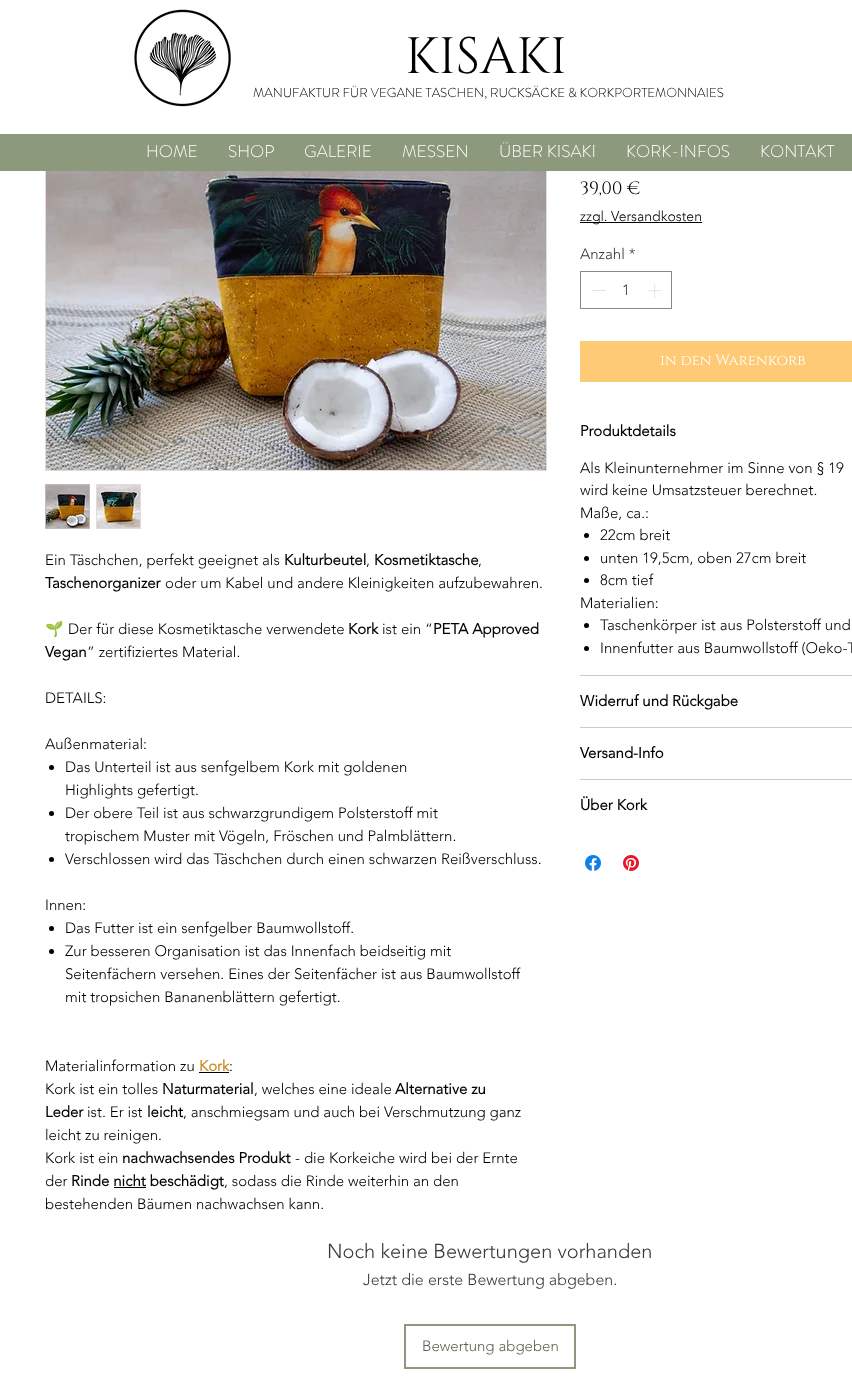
<svg xmlns="http://www.w3.org/2000/svg" width="852" height="1381">
<rect width="100%" height="100%" fill="#fff"/>
<rect x="45.5" y="95.5" width="501" height="375" fill="none" stroke="#e3dbd5"/>
<rect x="45" y="95" width="502" height="39" fill="#fff"/>
<image x="134" y="9" width="97" height="98" href="media/1.png"/>
<text x="405" y="73" style="font-family:Cinzel;font-size:51px;fill:#000">KISAKI</text>
<text x="253" y="97" style="font-family:'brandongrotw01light';font-size:13px;font-weight:300;fill:#000">MANUFAKTUR FÜR VEGANE TASCHEN, RUCKSÄCKE &amp; KORKPORTEMONNAIES</text>
<rect y="134" width="852" height="37" fill="#8c997c"/>
<text x="146" y="157" style="font-family:'brandongrotw01light';font-size:17px;font-weight:300;fill:#fff">HOME</text>
<text x="228" y="157" style="font-family:'brandongrotw01light';font-size:17px;font-weight:300;fill:#fff">SHOP</text>
<text x="304" y="157" style="font-family:'brandongrotw01light';font-size:17px;font-weight:300;fill:#fff">GALERIE</text>
<text x="402" y="157" style="font-family:'brandongrotw01light';font-size:17px;font-weight:300;fill:#fff">MESSEN</text>
<text x="499" y="157" style="font-family:'brandongrotw01light';font-size:17px;font-weight:300;fill:#fff">ÜBER KISAKI</text>
<text x="626" y="157" style="font-family:'brandongrotw01light';font-size:17px;font-weight:300;fill:#fff">KORK-INFOS</text>
<text x="760" y="157" style="font-family:'brandongrotw01light';font-size:17px;font-weight:300;fill:#fff">KONTAKT</text>
<image x="46" y="171" width="500" height="299" href="media/2.png"/>
<rect x="45.5" y="484.5" width="44" height="44" fill="none" stroke="#c7b9af"/>
<image x="46" y="485" width="43" height="43" href="media/3.png"/>
<rect x="96" y="484" width="45" height="45" fill="#e3dbd5"/>
<image x="97" y="485" width="43" height="43" href="media/4.png"/>
<text x="45" y="565" style="font-family:'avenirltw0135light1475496';font-size:15px;font-weight:300;fill:#000">Ein Täschchen, perfekt geeignet als</text>
<text x="284" y="565" style="font-family:'avenirltw0135light1475496';font-size:15px;font-weight:bold;fill:#000">Kulturbeutel</text>
<text x="366" y="565" style="font-family:'avenirltw0135light1475496';font-size:15px;font-weight:300;fill:#000">,</text>
<text x="374" y="565" style="font-family:'avenirltw0135light1475496';font-size:15px;font-weight:bold;fill:#000">Kosmetiktasche</text>
<text x="478" y="565" style="font-family:'avenirltw0135light1475496';font-size:15px;font-weight:300;fill:#000">,</text>
<text x="45" y="588" style="font-family:'avenirltw0135light1475496';font-size:15px;font-weight:bold;fill:#000">Taschenorganizer</text>
<text x="165" y="588" style="font-family:'avenirltw0135light1475496';font-size:15px;font-weight:300;fill:#000">oder um Kabel und andere Kleinigkeiten aufzubewahren.</text>
<text x="45" y="634" style="font-family:Noto Color Emoji;font-size:15px;fill:#000">🌱</text>
<text x="68" y="634" style="font-family:'avenirltw0135light1475496';font-size:15px;font-weight:300;fill:#000">Der für diese Kosmetiktasche verwendete</text>
<text x="348" y="634" style="font-family:'avenirltw0135light1475496';font-size:15px;font-weight:bold;fill:#000">Kork</text>
<text x="382" y="634" style="font-family:'avenirltw0135light1475496';font-size:15px;font-weight:300;fill:#000">ist ein “</text>
<text x="433" y="634" style="font-family:'avenirltw0135light1475496';font-size:15px;font-weight:bold;fill:#000">PETA Approved</text>
<text x="45" y="657" style="font-family:'avenirltw0135light1475496';font-size:15px;font-weight:bold;fill:#000">Vegan</text>
<text x="87" y="657" style="font-family:'avenirltw0135light1475496';font-size:15px;font-weight:300;fill:#000">” zertifiziertes Material.</text>
<text x="45" y="703" style="font-family:'avenirltw0135light1475496';font-size:15px;font-weight:300;fill:#000">DETAILS:</text>
<text x="45" y="749" style="font-family:'avenirltw0135light1475496';font-size:15px;font-weight:300;fill:#000">Außenmaterial:</text>
<circle cx="51.5" cy="767.5" r="2.5" fill="#000"/>
<text x="65" y="772" style="font-family:'avenirltw0135light1475496';font-size:15px;font-weight:300;fill:#000">Das Unterteil ist aus senfgelbem Kork mit goldenen</text>
<text x="65" y="795" style="font-family:'avenirltw0135light1475496';font-size:15px;font-weight:300;fill:#000">Highlights gefertigt.</text>
<circle cx="51.5" cy="813.5" r="2.5" fill="#000"/>
<text x="65" y="818" style="font-family:'avenirltw0135light1475496';font-size:15px;font-weight:300;fill:#000">Der obere Teil ist aus schwarzgrundigem Polsterstoff mit</text>
<text x="65" y="841" style="font-family:'avenirltw0135light1475496';font-size:15px;font-weight:300;fill:#000">tropischem Muster mit Vögeln, Fröschen und Palmblättern.</text>
<circle cx="51.5" cy="859.5" r="2.5" fill="#000"/>
<text x="65" y="864" style="font-family:'avenirltw0135light1475496';font-size:15px;font-weight:300;fill:#000">Verschlossen wird das Täschchen durch einen schwarzen Reißverschluss.</text>
<text x="45" y="910" style="font-family:'avenirltw0135light1475496';font-size:15px;font-weight:300;fill:#000">Innen:</text>
<circle cx="51.5" cy="928.5" r="2.5" fill="#000"/>
<text x="65" y="933" style="font-family:'avenirltw0135light1475496';font-size:15px;font-weight:300;fill:#000">Das Futter ist ein senfgelber Baumwollstoff.</text>
<circle cx="51.5" cy="951.5" r="2.5" fill="#000"/>
<text x="65" y="956" style="font-family:'avenirltw0135light1475496';font-size:15px;font-weight:300;fill:#000">Zur besseren Organisation ist das Innenfach beidseitig mit</text>
<text x="65" y="979" style="font-family:'avenirltw0135light1475496';font-size:15px;font-weight:300;fill:#000">Seitenfächern versehen. Eines der Seitenfächer ist aus Baumwollstoff</text>
<text x="65" y="1002" style="font-family:'avenirltw0135light1475496';font-size:15px;font-weight:300;fill:#000">mit tropsichen Bananenblättern gefertigt.</text>
<text x="45" y="1071" style="font-family:'avenirltw0135light1475496';font-size:15px;font-weight:300;fill:#000">Materialinformation zu</text>
<text x="199" y="1071" style="font-family:'avenirltw0135light1475496';font-size:15px;font-weight:bold;fill:#cc8823">Kork</text>
<rect x="199" y="1072" width="30" height="1" fill="#000"/>
<text x="229" y="1071" style="font-family:'avenirltw0135light1475496';font-size:15px;font-weight:300;fill:#000">:</text>
<text x="45" y="1094" style="font-family:'avenirltw0135light1475496';font-size:15px;font-weight:300;fill:#000">Kork ist ein tolles</text>
<text x="162" y="1094" style="font-family:'avenirltw0135light1475496';font-size:15px;font-weight:bold;fill:#000">Naturmaterial</text>
<text x="254" y="1094" style="font-family:'avenirltw0135light1475496';font-size:15px;font-weight:300;fill:#000">, welches eine ideale</text>
<text x="395" y="1094" style="font-family:'avenirltw0135light1475496';font-size:15px;font-weight:bold;fill:#000">Alternative zu</text>
<text x="45" y="1117" style="font-family:'avenirltw0135light1475496';font-size:15px;font-weight:bold;fill:#000">Leder</text>
<text x="87" y="1117" style="font-family:'avenirltw0135light1475496';font-size:15px;font-weight:300;fill:#000">ist. Er ist</text>
<text x="147" y="1117" style="font-family:'avenirltw0135light1475496';font-size:15px;font-weight:bold;fill:#000">leicht</text>
<text x="183" y="1117" style="font-family:'avenirltw0135light1475496';font-size:15px;font-weight:300;fill:#000">, anschmiegsam und auch bei Verschmutzung ganz</text>
<text x="45" y="1140" style="font-family:'avenirltw0135light1475496';font-size:15px;font-weight:300;fill:#000">leicht zu reinigen.</text>
<text x="45" y="1163" style="font-family:'avenirltw0135light1475496';font-size:15px;font-weight:300;fill:#000">Kork ist ein</text>
<text x="122" y="1163" style="font-family:'avenirltw0135light1475496';font-size:15px;font-weight:bold;fill:#000">nachwachsendes Produkt</text>
<text x="295" y="1163" style="font-family:'avenirltw0135light1475496';font-size:15px;font-weight:300;fill:#000">- die Korkeiche wird bei der Ernte</text>
<text x="45" y="1186" style="font-family:'avenirltw0135light1475496';font-size:15px;font-weight:300;fill:#000">der</text>
<text x="71" y="1186" style="font-family:'avenirltw0135light1475496';font-size:15px;font-weight:bold;fill:#000">Rinde nicht beschädigt</text>
<rect x="114" y="1187" width="32" height="1" fill="#000"/>
<text x="224" y="1186" style="font-family:'avenirltw0135light1475496';font-size:15px;font-weight:300;fill:#000">, sodass die Rinde weiterhin an den</text>
<text x="45" y="1209" style="font-family:'avenirltw0135light1475496';font-size:15px;font-weight:300;fill:#000">bestehenden Bäumen nachwachsen kann.</text>
<text x="580" y="194" style="font-family:Cinzel;font-size:18px;fill:#000">39,00 €</text>
<rect x="580" y="222" width="122" height="1" fill="#000"/>
<text x="580" y="221" style="font-family:'avenirltw0135light1475496';font-size:14px;font-weight:300;fill:#000">zzgl. Versandkosten</text>
<text x="580" y="259" style="font-family:'avenirltw0135light1475496';font-size:15px;font-weight:300;fill:#3b3737">Anzahl *</text>
<rect x="580.5" y="271.5" width="91" height="37" fill="none" stroke="#898787"/>
<rect x="592" y="290" width="14" height="1" fill="#e3e3e3"/>
<text x="622" y="295" style="font-family:'avenirltw0135light1475496';font-size:15px;font-weight:300;fill:#3b3737">1</text>
<image x="647" y="283" width="15" height="15" href="media/5.png"/>
<rect x="580" y="341" width="272" height="41" fill="#ffca75"/>
<text x="660" y="365" style="font-family:Cinzel;font-size:15px;fill:#fff">in den Warenkorb</text>
<rect x="580" y="675" width="272" height="1" fill="#cccbcb"/>
<text x="580" y="436" style="font-family:'avenirltw0135light1475496';font-size:15px;font-weight:bold;fill:#000">Produktdetails</text>
<text x="580" y="473" style="font-family:'avenirltw0135light1475496';font-size:15px;font-weight:300;fill:#000">Als Kleinunternehmer im Sinne von § 19</text>
<text x="580" y="495" style="font-family:'avenirltw0135light1475496';font-size:15px;font-weight:300;fill:#000">wird keine Umsatzsteuer berechnet.</text>
<text x="580" y="518" style="font-family:'avenirltw0135light1475496';font-size:15px;font-weight:300;fill:#000">Maße, ca.:</text>
<circle cx="586.5" cy="535.5" r="2.5" fill="#000"/>
<text x="600" y="540" style="font-family:'avenirltw0135light1475496';font-size:15px;font-weight:300;fill:#000">22cm breit</text>
<circle cx="586.5" cy="558.5" r="2.5" fill="#000"/>
<text x="600" y="563" style="font-family:'avenirltw0135light1475496';font-size:15px;font-weight:300;fill:#000">unten 19,5cm, oben 27cm breit</text>
<circle cx="586.5" cy="580.5" r="2.5" fill="#000"/>
<text x="600" y="585" style="font-family:'avenirltw0135light1475496';font-size:15px;font-weight:300;fill:#000">8cm tief</text>
<text x="580" y="608" style="font-family:'avenirltw0135light1475496';font-size:15px;font-weight:300;fill:#000">Materialien:</text>
<circle cx="586.5" cy="625.5" r="2.5" fill="#000"/>
<text x="600" y="630" style="font-family:'avenirltw0135light1475496';font-size:15px;font-weight:300;fill:#000">Taschenkörper ist aus Polsterstoff und</text>
<circle cx="586.5" cy="648.5" r="2.5" fill="#000"/>
<text x="600" y="653" style="font-family:'avenirltw0135light1475496';font-size:15px;font-weight:300;fill:#000">Innenfutter aus Baumwollstoff (Oeko-T</text>
<rect x="580" y="727" width="272" height="1" fill="#cccbcb"/>
<text x="580" y="706" style="font-family:'avenirltw0135light1475496';font-size:15px;font-weight:bold;fill:#000">Widerruf und Rückgabe</text>
<rect x="580" y="779" width="272" height="1" fill="#cccbcb"/>
<text x="580" y="758" style="font-family:'avenirltw0135light1475496';font-size:15px;font-weight:bold;fill:#000">Versand-Info</text>
<text x="580" y="810" style="font-family:'avenirltw0135light1475496';font-size:15px;font-weight:bold;fill:#000">Über Kork</text>
<image x="585" y="855" width="16" height="16" href="media/6.png"/>
<image x="623" y="855" width="16" height="16" href="media/7.png"/>
<text x="327" y="1258" style="font-family:'avenirltw0135light1475496';font-size:20px;font-weight:300;fill:#3b3737">Noch keine Bewertungen vorhanden</text>
<text x="363" y="1285" style="font-family:'avenirltw0135light1475496';font-size:16px;font-weight:300;fill:#3b3737">Jetzt die erste Bewertung abgeben.</text>
<rect x="405" y="1325" width="170" height="43" fill="none" stroke="#8c997c" stroke-width="2"/>
<text x="422" y="1351" style="font-family:'avenirltw0135light1475496';font-size:15px;font-weight:300;fill:#5d6653">Bewertung abgeben</text>
</svg>
